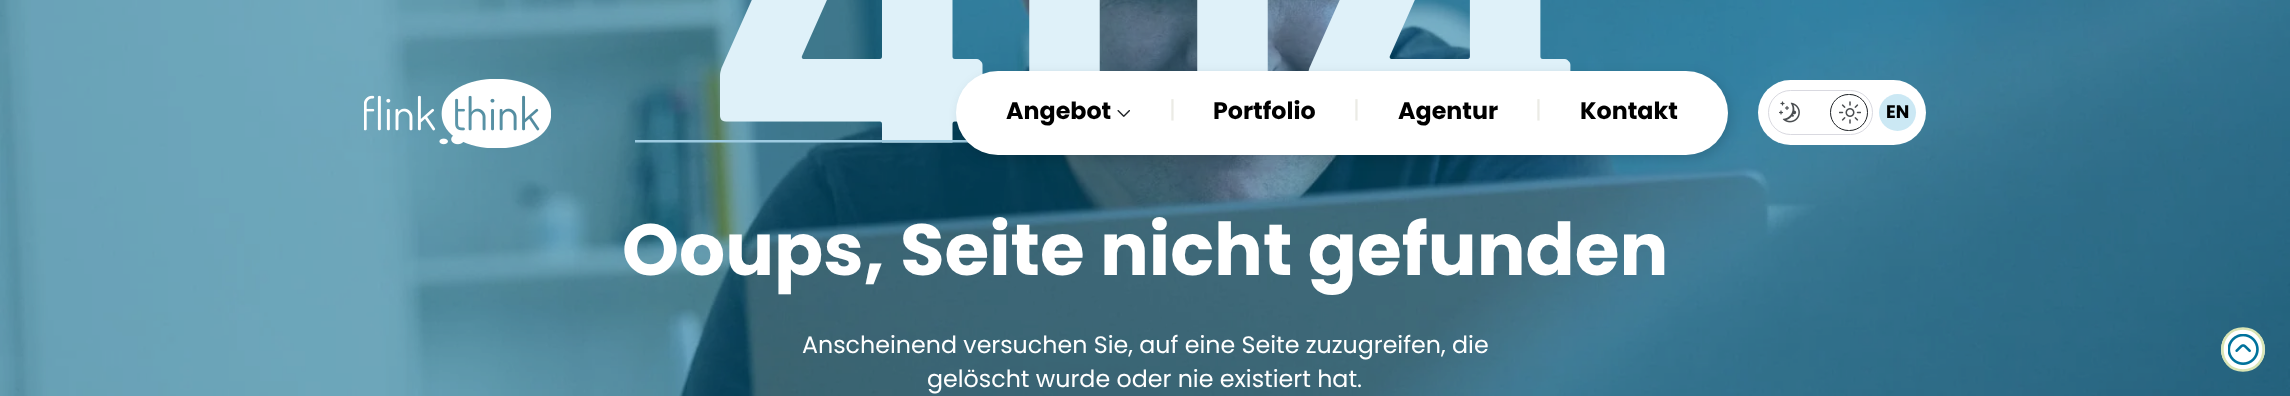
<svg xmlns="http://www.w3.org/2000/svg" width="2290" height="396">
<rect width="100%" height="100%" fill="#fff"/>
<image x="0" y="0" width="2290" height="396" href="media/5.png"/>
<image x="364" y="79" width="187" height="69" href="media/1.png"/>
<image x="635" y="0" width="936" height="143" href="media/6.png"/>
<rect x="960" y="75" width="771" height="84" rx="42" fill="#00000024" filter="blur(6px)"/>
<rect x="956" y="71" width="772" height="84" rx="42" fill="#fff"/>
<text x="1006" y="119" style="font-family:Poppins;font-size:23.75px;font-weight:bold;fill:#000">Angebot</text>
<image x="1117" y="110" width="13" height="7" href="media/2.png"/>
<text x="1169" y="118" style="font-family:Poppins;font-size:23.75px;fill:#ebebe5">|</text>
<text x="1213" y="119" style="font-family:Poppins;font-size:23.75px;font-weight:bold;fill:#000">Portfolio</text>
<text x="1353" y="118" style="font-family:Poppins;font-size:23.75px;fill:#ebebe5">|</text>
<text x="1398" y="119" style="font-family:Poppins;font-size:23.75px;font-weight:bold;fill:#000">Agentur</text>
<text x="1535" y="118" style="font-family:Poppins;font-size:23.75px;fill:#ebebe5">|</text>
<text x="1580" y="119" style="font-family:Poppins;font-size:23.75px;font-weight:bold;fill:#000">Kontakt</text>
<rect x="1758" y="80" width="168" height="65" rx="32.5" fill="#fff"/>
<rect x="1768.5" y="90.5" width="104" height="44" rx="22" fill="none" stroke="#d9d9e0"/>
<image x="1779" y="101" width="21" height="22" href="media/3.png"/>
<rect x="1830.5" y="94.5" width="37" height="36" rx="18" fill="none" stroke="#1c2024"/>
<image x="1839" y="101" width="22" height="23" href="media/4.png"/>
<circle cx="1897.5" cy="112.5" r="18.5" fill="#cbe8f4"/>
<text x="1886" y="118" style="font-family:Poppins;font-size:18px;font-weight:bold;fill:#000">EN</text>
<text x="622" y="275" style="font-family:Poppins;font-size:72.5px;font-weight:bold;fill:#fff">Ooups, Seite nicht gefunden</text>
<text x="802" y="353" style="font-family:Poppins;font-size:23.75px;fill:#fff">Anscheinend versuchen Sie, auf eine Seite zuzugreifen, die</text>
<text x="927" y="387" style="font-family:Poppins;font-size:23.75px;fill:#fff">gelöscht wurde oder nie existiert hat.</text>
<rect x="2221" y="328" width="44" height="43" rx="21.5" fill="#fff"/>
<image x="2228" y="334" width="31" height="31" href="media/7.png"/>
<path d="M2243 328.5c27.5 0 27.5 42 0 42c-27.5 0-27.5-42 0-42" fill="none" stroke="#d9e4b4" stroke-width="2.6" stroke-linecap="round"/>
</svg>
